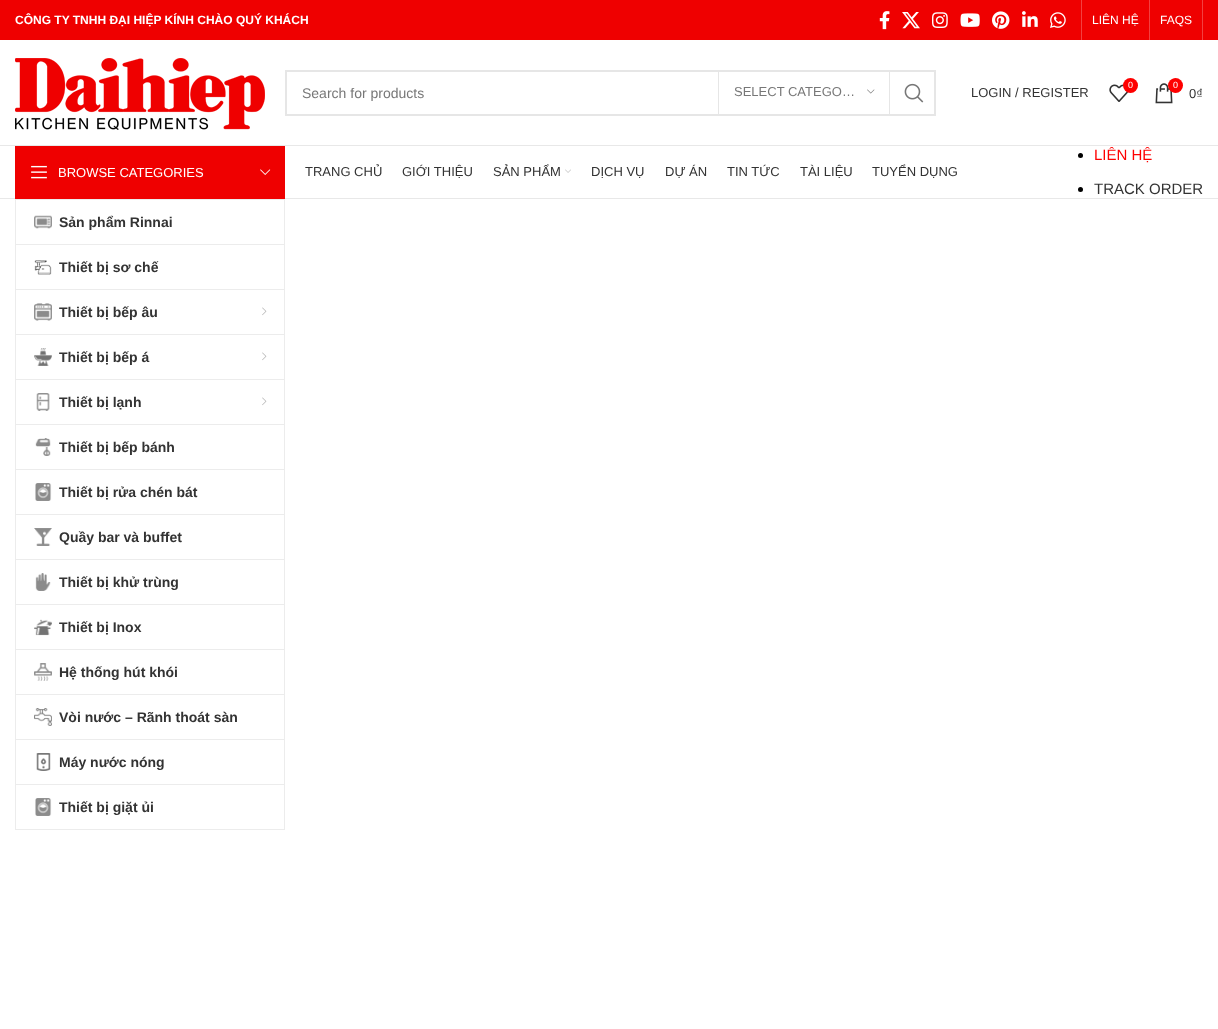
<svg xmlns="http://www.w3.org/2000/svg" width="1218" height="1029">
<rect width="100%" height="100%" fill="#fff"/>
<rect width="1218" height="40" fill="#ef0000"/>
<text x="15" y="24" style="font-family:Liberation Sans;font-size:12px;font-weight:bold;fill:#fff">CÔNG TY TNHH ĐẠI HIỆP KÍNH CHÀO QUÝ KHÁCH</text>
<image x="879" y="11" width="11" height="19" href="media/1.png"/>
<image x="902" y="12" width="18" height="17" href="media/2.png"/>
<image x="932" y="12" width="16" height="16" href="media/3.png"/>
<image x="960" y="13" width="20" height="14" href="media/4.png"/>
<image x="992" y="11" width="18" height="18" href="media/5.png"/>
<image x="1022" y="11" width="16" height="16" href="media/6.png"/>
<image x="1050" y="12" width="16" height="16" href="media/7.png"/>
<rect x="1081" width="1" height="40" fill="#f34040"/>
<text x="1092" y="24" style="font-family:Liberation Sans;font-size:12px;fill:#fff">LIÊN HỆ</text>
<rect x="1149" width="1" height="40" fill="#f34040"/>
<text x="1160" y="24" style="font-family:Liberation Sans;font-size:12px;fill:#fff">FAQS</text>
<rect x="1202" width="1" height="40" fill="#f34040"/>
<rect y="145" width="1218" height="1" fill="#e8e8e8"/>
<image x="15" y="58" width="250" height="72" href="media/8.png"/>
<rect x="286" y="71" width="649" height="44" fill="none" stroke="#e6e6e6" stroke-width="2"/>
<text x="302" y="98" style="font-family:Liberation Sans;font-size:14px;fill:#777">Search for products</text>
<rect x="889" y="72" width="1" height="42" fill="#e6e6e6"/>
<rect x="718" y="72" width="1" height="42" fill="#e6e6e6"/>
<text x="734" y="96" style="font-family:Liberation Sans;font-size:13px;fill:#777">SELECT CATEGO…</text>
<image x="867" y="89" width="8" height="5" href="media/9.png"/>
<image x="904" y="83" width="20" height="20" href="media/10.png"/>
<text x="971" y="97" style="font-family:Liberation Sans;font-size:13px;fill:#333">LOGIN / REGISTER</text>
<image x="1109" y="84" width="20" height="18" href="media/11.png"/>
<circle cx="1130.5" cy="85.5" r="7.5" fill="#fe0000"/>
<text x="1128" y="88" style="font-family:Liberation Sans;font-size:9px;fill:#fff">0</text>
<image x="1155" y="83" width="18" height="21" href="media/12.png"/>
<circle cx="1175.5" cy="85.5" r="7.5" fill="#fe0000"/>
<text x="1173" y="88" style="font-family:Liberation Sans;font-size:9px;fill:#fff">0</text>
<text x="1189" y="98" style="font-family:Liberation Sans;font-size:13px;fill:#333">0₫</text>
<rect y="198" width="1218" height="1" fill="#e8e8e8"/>
<rect x="15" y="146" width="270" height="53" fill="#ef0000"/>
<image x="31" y="165" width="16" height="14" href="media/13.png"/>
<text x="58" y="177" style="font-family:Liberation Sans;font-size:13px;fill:#fff">BROWSE CATEGORIES</text>
<image x="260" y="169" width="11" height="6" href="media/14.png"/>
<rect x="15.5" y="199.5" width="269" height="630" fill="none" stroke="#ececec"/>
<rect x="16" y="244" width="268" height="1" fill="#ececec"/>
<image x="34" y="215" width="18" height="14" href="media/15.png"/>
<text x="59" y="227" style="font-family:Liberation Sans;font-size:14px;font-weight:bold;fill:#333">Sản phẩm Rinnai</text>
<rect x="16" y="289" width="268" height="1" fill="#ececec"/>
<image x="34" y="260" width="18" height="15" href="media/16.png"/>
<text x="59" y="272" style="font-family:Liberation Sans;font-size:14px;font-weight:bold;fill:#333">Thiết bị sơ chế</text>
<rect x="16" y="334" width="268" height="1" fill="#ececec"/>
<image x="34" y="303" width="18" height="18" href="media/17.png"/>
<text x="59" y="317" style="font-family:Liberation Sans;font-size:14px;font-weight:bold;fill:#333">Thiết bị bếp âu</text>
<image x="262" y="307" width="5" height="9" href="media/18.png"/>
<rect x="16" y="379" width="268" height="1" fill="#ececec"/>
<image x="34" y="348" width="18" height="18" href="media/19.png"/>
<text x="59" y="362" style="font-family:Liberation Sans;font-size:14px;font-weight:bold;fill:#333">Thiết bị bếp á</text>
<image x="262" y="352" width="5" height="9" href="media/18.png"/>
<rect x="16" y="424" width="268" height="1" fill="#ececec"/>
<image x="36" y="393" width="14" height="18" href="media/20.png"/>
<text x="59" y="407" style="font-family:Liberation Sans;font-size:14px;font-weight:bold;fill:#333">Thiết bị lạnh</text>
<image x="262" y="397" width="5" height="9" href="media/18.png"/>
<rect x="16" y="469" width="268" height="1" fill="#ececec"/>
<image x="35" y="438" width="16" height="18" href="media/21.png"/>
<text x="59" y="452" style="font-family:Liberation Sans;font-size:14px;font-weight:bold;fill:#333">Thiết bị bếp bánh</text>
<rect x="16" y="514" width="268" height="1" fill="#ececec"/>
<image x="35" y="483" width="17" height="18" href="media/22.png"/>
<text x="59" y="497" style="font-family:Liberation Sans;font-size:14px;font-weight:bold;fill:#333">Thiết bị rửa chén bát</text>
<rect x="16" y="559" width="268" height="1" fill="#ececec"/>
<image x="34" y="528" width="18" height="18" href="media/23.png"/>
<text x="59" y="542" style="font-family:Liberation Sans;font-size:14px;font-weight:bold;fill:#333">Quầy bar và buffet</text>
<rect x="16" y="604" width="268" height="1" fill="#ececec"/>
<image x="35" y="573" width="16" height="18" href="media/24.png"/>
<text x="59" y="587" style="font-family:Liberation Sans;font-size:14px;font-weight:bold;fill:#333">Thiết bị khử trùng</text>
<rect x="16" y="649" width="268" height="1" fill="#ececec"/>
<image x="34" y="619" width="18" height="17" href="media/25.png"/>
<text x="59" y="632" style="font-family:Liberation Sans;font-size:14px;font-weight:bold;fill:#333">Thiết bị Inox</text>
<rect x="16" y="694" width="268" height="1" fill="#ececec"/>
<image x="34" y="663" width="18" height="18" href="media/26.png"/>
<text x="59" y="677" style="font-family:Liberation Sans;font-size:14px;font-weight:bold;fill:#333">Hệ thống hút khói</text>
<rect x="16" y="739" width="268" height="1" fill="#ececec"/>
<image x="34" y="708" width="18" height="18" href="media/27.png"/>
<text x="59" y="722" style="font-family:Liberation Sans;font-size:14px;font-weight:bold;fill:#333">Vòi nước – Rãnh thoát sàn</text>
<rect x="16" y="784" width="268" height="1" fill="#ececec"/>
<image x="36" y="753" width="15" height="18" href="media/28.png"/>
<text x="59" y="767" style="font-family:Liberation Sans;font-size:14px;font-weight:bold;fill:#333">Máy nước nóng</text>
<image x="35" y="798" width="17" height="18" href="media/22.png"/>
<text x="59" y="812" style="font-family:Liberation Sans;font-size:14px;font-weight:bold;fill:#333">Thiết bị giặt ủi</text>
<text x="305" y="176" style="font-family:Liberation Sans;font-size:13px;fill:#333">TRANG CHỦ</text>
<text x="402" y="176" style="font-family:Liberation Sans;font-size:13px;fill:#333">GIỚI THIỆU</text>
<text x="493" y="176" style="font-family:Liberation Sans;font-size:13px;fill:#333">SẢN PHẨM</text>
<image x="565" y="169" width="6" height="4" href="media/29.png"/>
<text x="591" y="176" style="font-family:Liberation Sans;font-size:13px;fill:#333">DỊCH VỤ</text>
<text x="665" y="176" style="font-family:Liberation Sans;font-size:13px;fill:#333">DỰ ÁN</text>
<text x="727" y="176" style="font-family:Liberation Sans;font-size:13px;fill:#333">TIN TỨC</text>
<text x="800" y="176" style="font-family:Liberation Sans;font-size:13px;fill:#333">TÀI LIỆU</text>
<text x="872" y="176" style="font-family:Liberation Sans;font-size:13px;fill:#333">TUYỂN DỤNG</text>
<circle cx="1080.5" cy="155.5" r="2.5" fill="#000"/>
<text x="1094" y="160" style="font-family:Liberation Sans;font-size:15px;fill:#fe0000">LIÊN HỆ</text>
<circle cx="1080.5" cy="189.5" r="2.5" fill="#000"/>
<text x="1094" y="194" style="font-family:Liberation Sans;font-size:15px;fill:#333">TRACK ORDER</text>
</svg>
